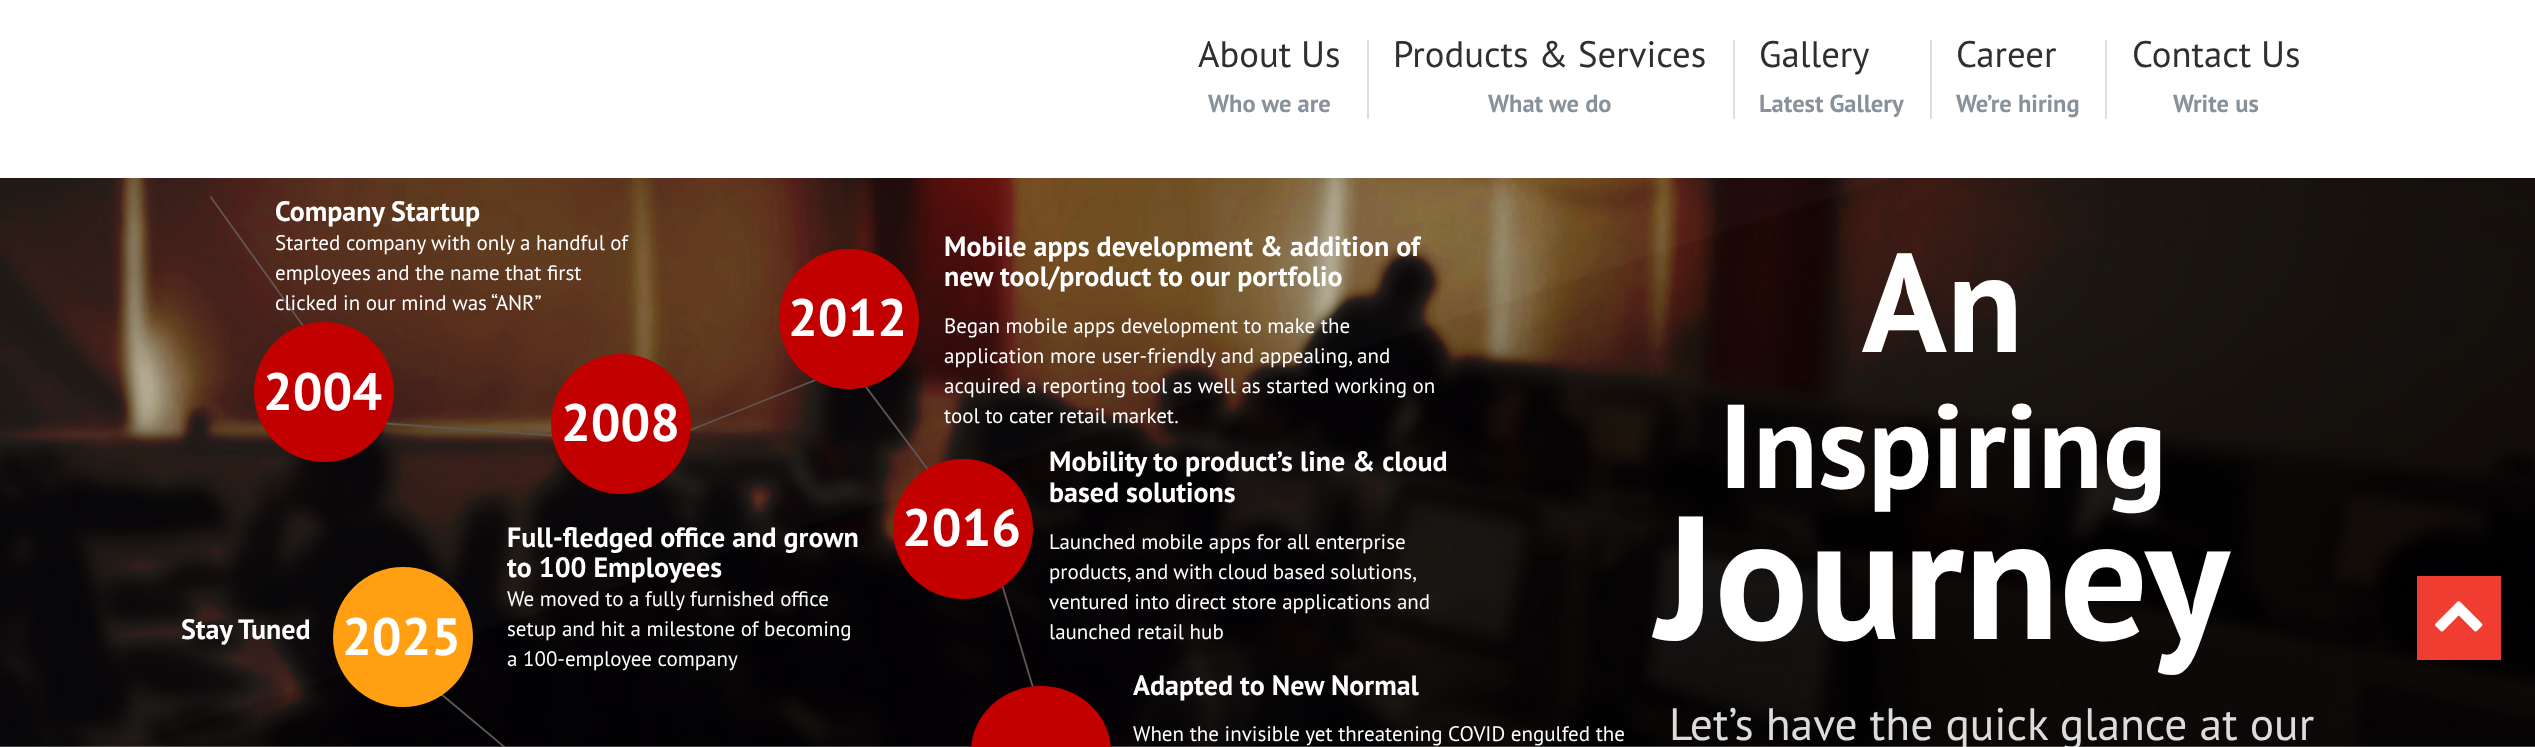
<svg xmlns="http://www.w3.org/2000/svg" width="2535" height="747">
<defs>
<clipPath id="clip1"><rect x="210" y="196" width="1050" height="140"/></clipPath>
<clipPath id="clip2"><rect x="210" y="196" width="350" height="487"/></clipPath>
<clipPath id="clip3"><rect x="488" y="196" width="350" height="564"/></clipPath>
<clipPath id="clip4"><rect x="837" y="371" width="175" height="166"/></clipPath>
</defs>
<rect width="100%" height="100%" fill="#fff"/>
<text x="1198" y="67" style="font-family:PT Sans;font-size:36.75px;fill:#302f2f">About Us</text>
<text x="1208" y="112" style="font-family:PT Sans;font-size:24.5px;font-weight:bold;fill:#88929b">Who we are</text>
<rect x="1367" y="40" width="2" height="79" fill="#ddd"/>
<text x="1393" y="67" style="font-family:PT Sans;font-size:36.75px;fill:#302f2f">Products &amp; Services</text>
<text x="1488" y="112" style="font-family:PT Sans;font-size:24.5px;font-weight:bold;fill:#88929b">What we do</text>
<rect x="1733" y="40" width="2" height="79" fill="#ddd"/>
<text x="1759" y="67" style="font-family:PT Sans;font-size:36.75px;fill:#302f2f">Gallery</text>
<text x="1759" y="112" style="font-family:PT Sans;font-size:24.5px;font-weight:bold;fill:#88929b">Latest Gallery</text>
<rect x="1930" y="40" width="2" height="79" fill="#ddd"/>
<text x="1956" y="67" style="font-family:PT Sans;font-size:36.75px;fill:#302f2f">Career</text>
<text x="1956" y="112" style="font-family:PT Sans;font-size:24.5px;font-weight:bold;fill:#88929b">We’re hiring</text>
<rect x="2105" y="40" width="2" height="79" fill="#ddd"/>
<text x="2132" y="67" style="font-family:PT Sans;font-size:36.75px;fill:#302f2f">Contact Us</text>
<text x="2173" y="112" style="font-family:PT Sans;font-size:24.5px;font-weight:bold;fill:#88929b">Write us</text>
<image x="0" y="178" width="2535" height="569" href="media/1.png"/>
<g clip-path="url(#clip1)">
<path d="M210 196l577.5 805" fill="none" stroke="#615652" stroke-width="1.8"/>
</g>
<text x="275" y="221" style="font-family:PT Sans;font-size:28px;font-weight:bold;fill:#fff">Company Startup</text>
<text x="275" y="250" style="font-family:PT Sans;font-size:21px;fill:#fff">Started company with only a handful of</text>
<text x="275" y="280" style="font-family:PT Sans;font-size:21px;fill:#fff">employees and the name that first</text>
<text x="275" y="310" style="font-family:PT Sans;font-size:21px;fill:#fff">clicked in our mind was “ANR”</text>
<g clip-path="url(#clip2)">
<path d="M1610 511l-1225-87.5" fill="none" stroke="#615652" stroke-width="1.8"/>
</g>
<circle cx="324" cy="392" r="70" fill="#c20000"/>
<text x="263" y="410" style="font-family:PT Sans;font-size:52.5px;font-weight:bold;fill:#fff">2004</text>
<g clip-path="url(#clip3)">
<path d="M1013 301l-350 140" fill="none" stroke="#615652" stroke-width="1.8"/>
</g>
<g clip-path="url(#clip4)">
<path d="M854 371l262.5 350" fill="none" stroke="#615652" stroke-width="1.8"/>
</g>
<circle cx="849" cy="319" r="70" fill="#c20000"/>
<text x="788" y="336" style="font-family:PT Sans;font-size:52.5px;font-weight:bold;fill:#fff">2012</text>
<text x="944" y="256" style="font-family:PT Sans;font-size:28px;font-weight:bold;fill:#fff">Mobile apps development &amp; addition of</text>
<text x="944" y="286" style="font-family:PT Sans;font-size:28px;font-weight:bold;fill:#fff">new tool/product to our portfolio</text>
<text x="944" y="333" style="font-family:PT Sans;font-size:21px;fill:#fff">Began mobile apps development to make the</text>
<text x="944" y="363" style="font-family:PT Sans;font-size:21px;fill:#fff">application more user-friendly and appealing, and</text>
<text x="944" y="393" style="font-family:PT Sans;font-size:21px;fill:#fff">acquired a reporting tool as well as started working on</text>
<text x="944" y="423" style="font-family:PT Sans;font-size:21px;fill:#fff">tool to cater retail market.</text>
<circle cx="621" cy="424" r="70" fill="#c20000"/>
<text x="561" y="441" style="font-family:PT Sans;font-size:52.5px;font-weight:bold;fill:#fff">2008</text>
<text x="507" y="547" style="font-family:PT Sans;font-size:28px;font-weight:bold;fill:#fff">Full-fledged office and grown</text>
<text x="507" y="577" style="font-family:PT Sans;font-size:28px;font-weight:bold;fill:#fff">to 100 Employees</text>
<text x="507" y="606" style="font-family:PT Sans;font-size:21px;fill:#fff">We moved to a fully furnished office</text>
<text x="507" y="636" style="font-family:PT Sans;font-size:21px;fill:#fff">setup and hit a milestone of becoming</text>
<text x="507" y="666" style="font-family:PT Sans;font-size:21px;fill:#fff">a 100-employee company</text>
<path d="M990.5 546l52.5 175" fill="none" stroke="#615652" stroke-width="1.8"/>
<circle cx="963" cy="529" r="70" fill="#c20000"/>
<text x="902" y="546" style="font-family:PT Sans;font-size:52.5px;font-weight:bold;fill:#fff">2016</text>
<text x="1049" y="471" style="font-family:PT Sans;font-size:28px;font-weight:bold;fill:#fff">Mobility to product’s line &amp; cloud</text>
<text x="1049" y="502" style="font-family:PT Sans;font-size:28px;font-weight:bold;fill:#fff">based solutions</text>
<text x="1049" y="549" style="font-family:PT Sans;font-size:21px;fill:#fff">Launched mobile apps for all enterprise</text>
<text x="1049" y="579" word-spacing="-0.5" style="font-family:PT Sans;font-size:21px;fill:#fff">products, and with cloud based solutions,</text>
<text x="1049" y="609" style="font-family:PT Sans;font-size:21px;fill:#fff">ventured into direct store applications and</text>
<text x="1049" y="639" style="font-family:PT Sans;font-size:21px;fill:#fff">launched retail hub</text>
<rect x="971" y="686" width="140" height="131" rx="70" fill="#c20000"/>
<text x="1133" y="695" style="font-family:PT Sans;font-size:28px;font-weight:bold;fill:#fff">Adapted to New Normal</text>
<text x="1133" y="741" style="font-family:PT Sans;font-size:21px;fill:#fff">When the invisible yet threatening COVID engulfed the</text>
<text x="181" y="639" style="font-family:PT Sans;font-size:28px;font-weight:bold;fill:#fff">Stay Tuned</text>
<path d="M429 684l315 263" fill="none" stroke="#615652" stroke-width="1.8"/>
<circle cx="403" cy="637" r="70" fill="#ff9f11"/>
<text x="342" y="655" style="font-family:PT Sans;font-size:52.5px;font-weight:bold;fill:#fff">2025</text>
<text x="1862" y="352" style="font-family:PT Sans;font-size:140px;font-weight:bold;fill:#fff">An</text>
<text x="1719" y="488" style="font-family:PT Sans;font-size:119px;font-weight:bold;fill:#fff">Inspiring</text>
<text x="1656" y="639" style="font-family:PT Sans;font-size:175px;font-weight:bold;fill:#fff">Journey</text>
<text x="1669" y="740" style="font-family:PT Sans;font-size:45.5px;fill:#dcdcdc">Let’s have the quick glance at our</text>
<rect x="2417" y="576" width="84" height="84" fill="#ef3e31"/>
<image x="2435" y="601" width="48" height="31" href="media/2.png"/>
</svg>
